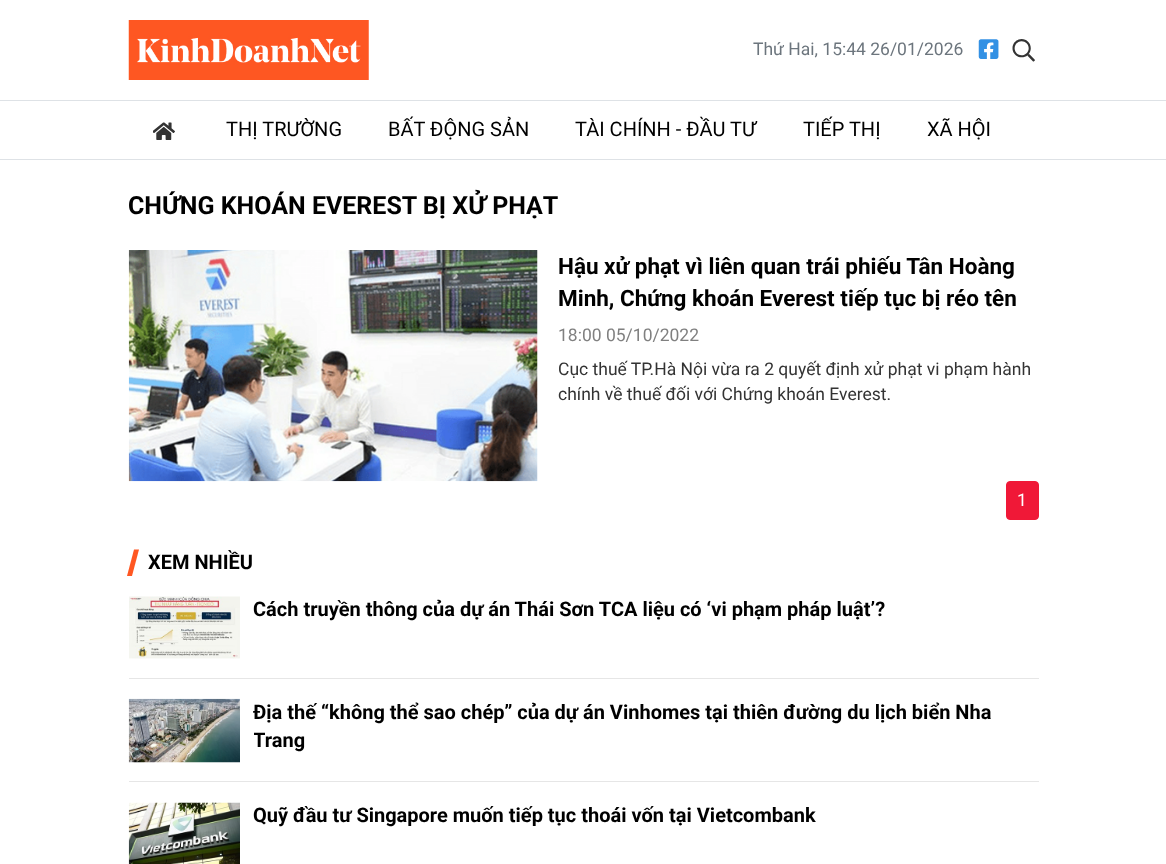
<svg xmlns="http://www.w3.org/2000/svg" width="1166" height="864">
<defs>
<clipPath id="clip1"><rect x="254" y="699" width="785" height="56"/></clipPath>
</defs>
<rect width="100%" height="100%" fill="#fff"/>
<image x="128" y="20" width="241" height="60" href="media/1.png"/>
<text x="753" y="55" style="font-family:Roboto;font-size:17.5px;fill:#6c757d">Thứ Hai, 15:44 26/01/2026</text>
<image x="978" y="39" width="21" height="20" href="media/2.png"/>
<image x="1012" y="39" width="23" height="23" href="media/3.png"/>
<rect y="100" width="1166" height="1" fill="#dee2e6"/>
<rect y="159" width="1166" height="1" fill="#dee2e6"/>
<image x="153" y="122" width="22" height="18" href="media/4.png"/>
<text x="226" y="136" style="font-family:Roboto;font-size:20px;fill:#000">THỊ TRƯỜNG</text>
<text x="388" y="136" style="font-family:Roboto;font-size:20px;fill:#000">BẤT ĐỘNG SẢN</text>
<text x="575" y="136" style="font-family:Roboto;font-size:20px;fill:#000">TÀI CHÍNH - ĐẦU TƯ</text>
<text x="803" y="136" style="font-family:Roboto;font-size:20px;fill:#000">TIẾP THỊ</text>
<text x="927" y="136" style="font-family:Roboto;font-size:20px;fill:#000">XÃ HỘI</text>
<text x="128" y="214" style="font-family:Roboto;font-size:25px;font-weight:bold;fill:#000">CHỨNG KHOÁN EVEREST BỊ XỬ PHẠT</text>
<image x="128" y="250" width="410" height="232" href="media/5.png"/>
<text x="558" y="274" style="font-family:Roboto;font-size:22.5px;font-weight:bold;fill:#000">Hậu xử phạt vì liên quan trái phiếu Tân Hoàng</text>
<text x="558" y="306" style="font-family:Roboto;font-size:22.5px;font-weight:bold;fill:#000">Minh, Chứng khoán Everest tiếp tục bị réo tên</text>
<text x="558" y="341" style="font-family:Roboto;font-size:17.5px;fill:#808080">18:00 05/10/2022</text>
<text x="558" y="375" style="font-family:Roboto;font-size:17.5px;fill:#333">Cục thuế TP.Hà Nội vừa ra 2 quyết định xử phạt vi phạm hành</text>
<text x="558" y="400" style="font-family:Roboto;font-size:17.5px;fill:#333">chính về thuế đối với Chứng khoán Everest.</text>
<rect x="1006.5" y="481.5" width="32" height="38" rx="3.5" fill="#f01837" stroke="#f01837"/>
<text x="1017" y="506" style="font-family:Roboto;font-size:17.5px;fill:#fff">1</text>
<path d="M134 549.5h5l-7 26.5h-5z" fill="#ff5722"/>
<text x="148" y="569" style="font-family:Roboto;font-size:20px;font-weight:bold;fill:#000">XEM NHIỀU</text>
<image x="129" y="596" width="111" height="63" href="media/6.png"/>
<text x="253" y="616" style="font-family:Roboto;font-size:20px;font-weight:bold;fill:#000">Cách truyền thông của dự án Thái Sơn TCA liệu có ‘vi phạm pháp luật’?</text>
<rect x="129" y="678" width="910" height="1" fill="#e6e6e6"/>
<image x="128" y="698" width="112" height="65" href="media/7.png"/>
<text x="253" y="719" style="font-family:Roboto;font-size:20px;font-weight:bold;fill:#000">Địa thế “không thể sao chép” của dự án Vinhomes tại thiên đường du lịch biển Nha</text>
<g clip-path="url(#clip1)">
<text x="253" y="747" style="font-family:Roboto;font-size:20px;font-weight:bold;fill:#000">Trang</text>
</g>
<rect x="129" y="781" width="910" height="1" fill="#e6e6e6"/>
<image x="128" y="802" width="112" height="62" href="media/8.png"/>
<text x="253" y="822" style="font-family:Roboto;font-size:20px;font-weight:bold;fill:#000">Quỹ đầu tư Singapore muốn tiếp tục thoái vốn tại Vietcombank</text>
</svg>
